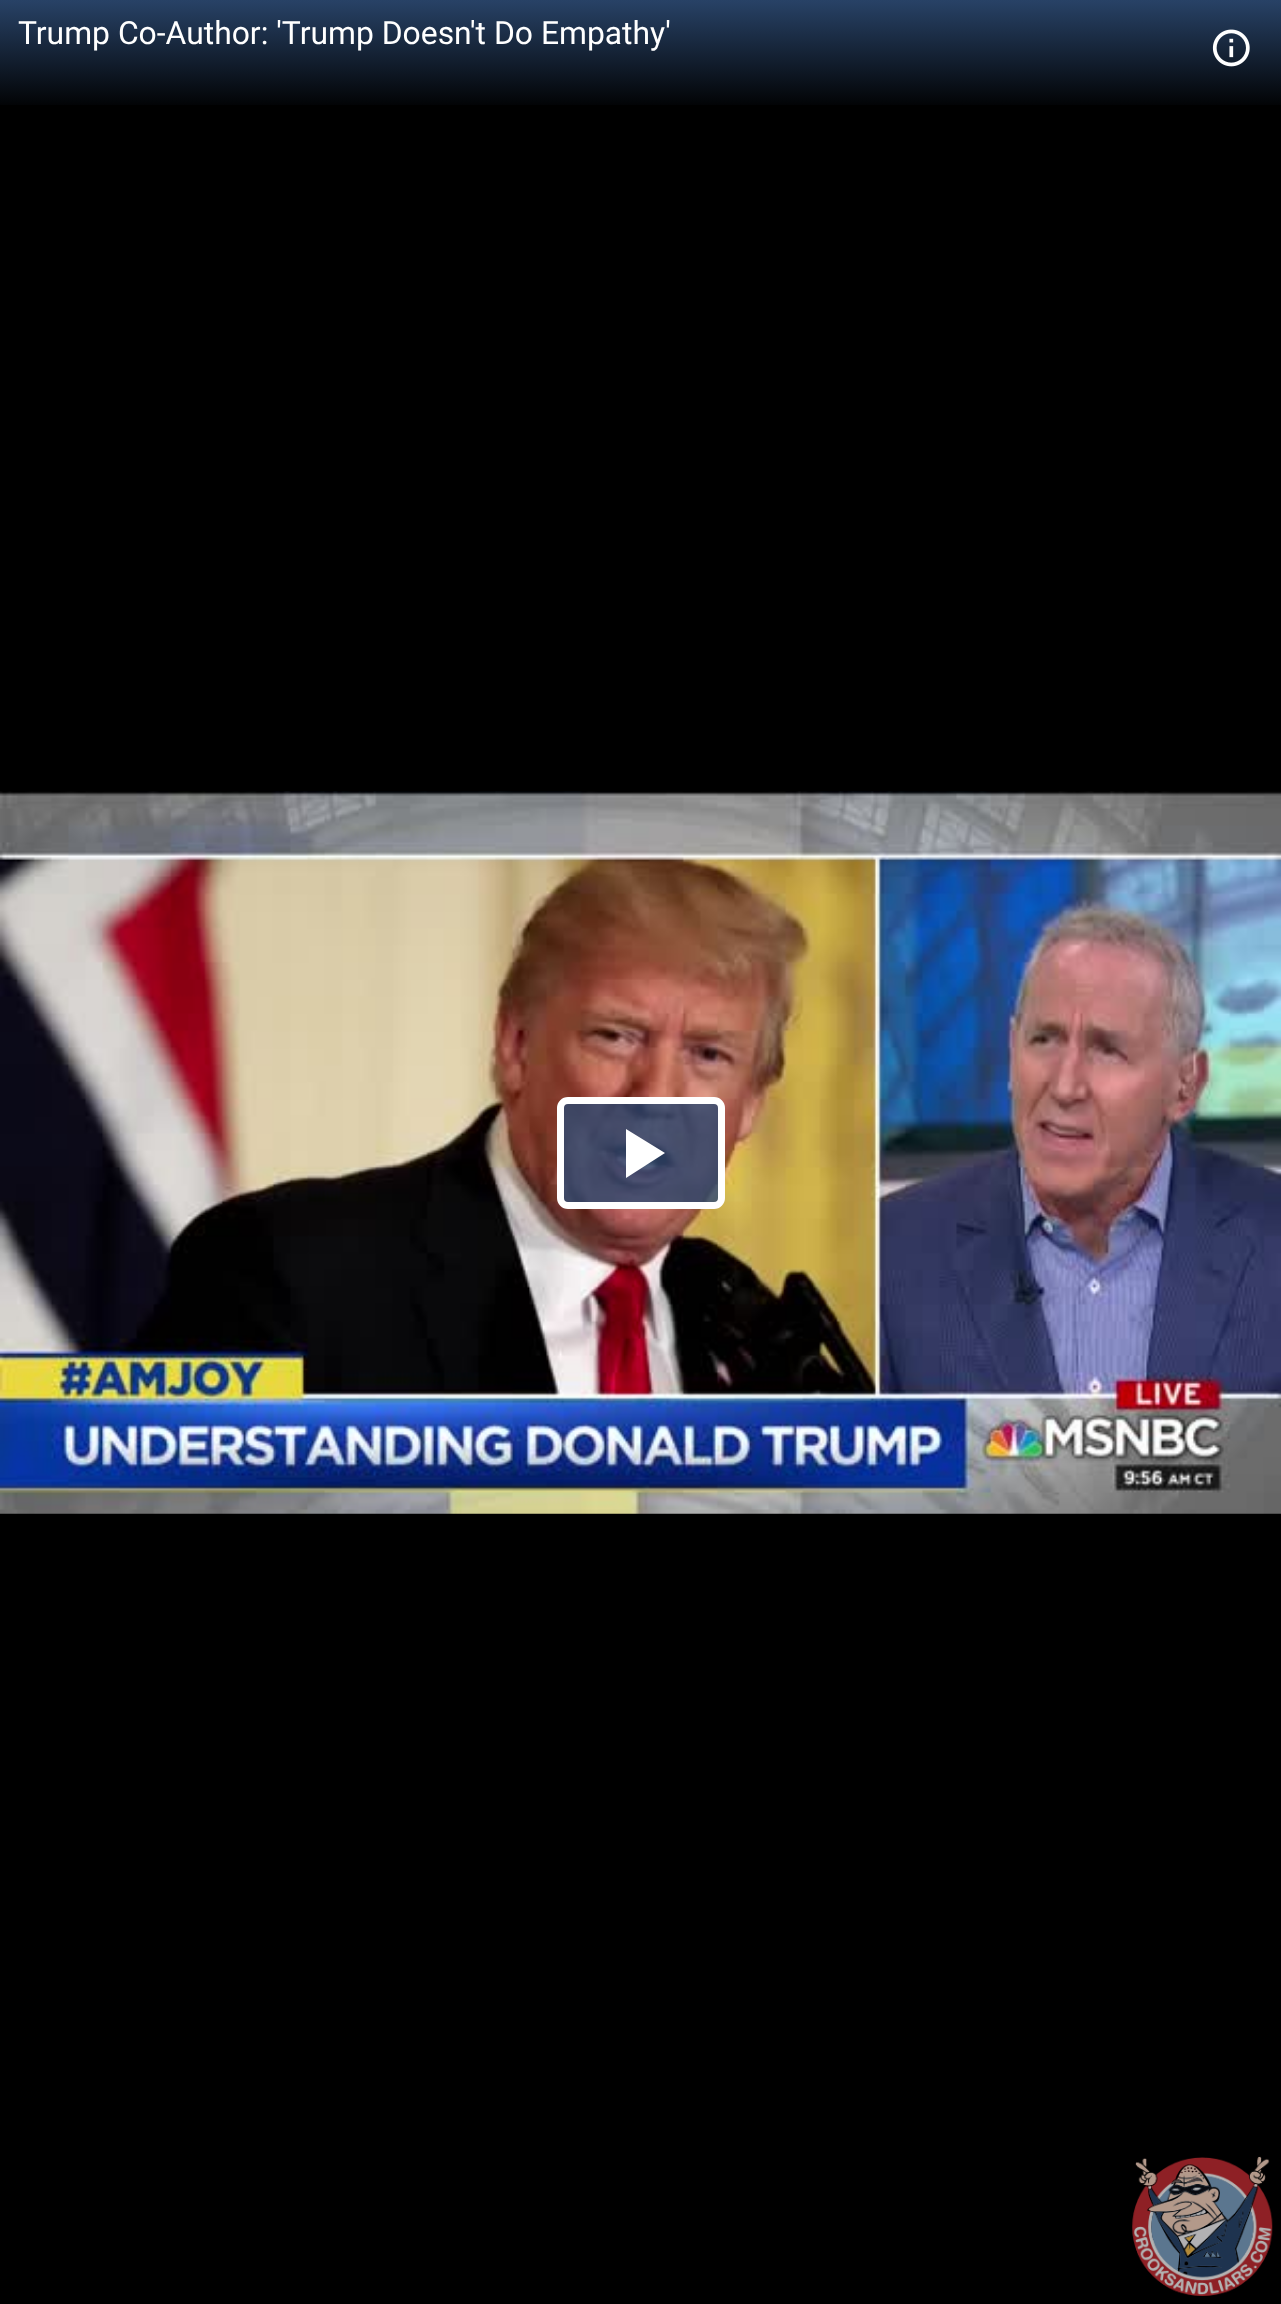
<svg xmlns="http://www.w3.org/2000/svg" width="1281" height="2304">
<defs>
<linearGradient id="g1" gradientUnits="userSpaceOnUse" x1="641" y1="0" x2="641" y2="105"><stop offset="0.01" stop-color="#2c4971" stop-opacity="0.9"/><stop offset="1" stop-color="#2c4971" stop-opacity="0.05"/></linearGradient>
</defs>
<rect width="100%" height="100%" fill="#000"/>
<rect width="1281" height="105" fill="url(#g1)"/>
<text x="18" y="44" style="font-family:Roboto;font-size:31.85px;fill:#fff">Trump Co-Author: 'Trump Doesn't Do Empathy'</text>
<image x="1212" y="29" width="38" height="38" href="media/1.png"/>
<image x="0" y="791" width="1281" height="723" href="media/2.png"/>
<rect x="560.5" y="1100.5" width="161" height="105" rx="7.5" fill="#2c4971cc" stroke="#fff" stroke-width="7"/>
<path d="M626 1129v49l39-25z" fill="#fff"/>
<image x="1132" y="2156" width="141" height="140" href="media/3.png"/>
</svg>
